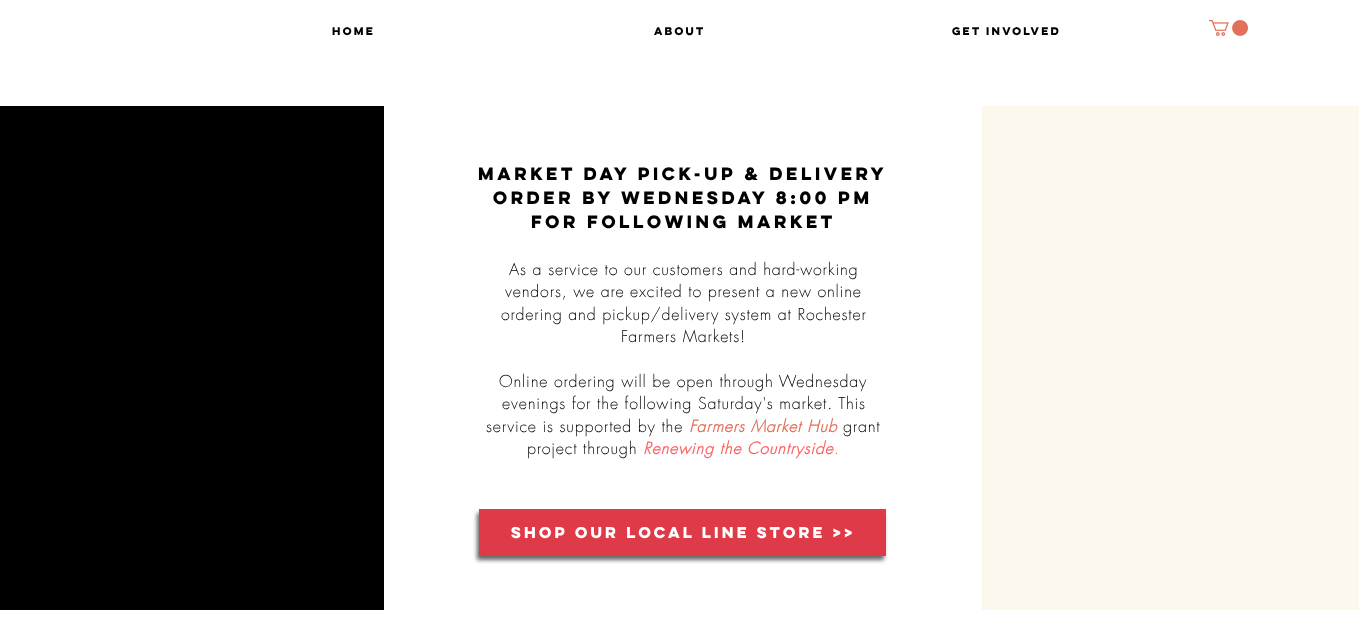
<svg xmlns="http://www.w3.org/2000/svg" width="1359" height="622">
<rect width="100%" height="100%" fill="#fff"/>
<text x="332" y="35" style="font-family:'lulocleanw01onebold';font-size:10px;font-weight:bold;fill:#000">Home</text>
<text x="654" y="35" style="font-family:'lulocleanw01onebold';font-size:10px;font-weight:bold;fill:#000">ABOUT</text>
<text x="952" y="35" style="font-family:'lulocleanw01onebold';font-size:10px;font-weight:bold;fill:#000">Get Involved</text>
<image x="1209" y="20" width="39" height="16" href="media/1.png"/>
<rect y="106" width="384" height="504" fill="#000"/>
<text x="478" y="180" style="font-family:'lulocleanw01onebold';font-size:16px;font-weight:bold;fill:#000">Market Day pick-up &amp; delivery</text>
<text x="493" y="204" style="font-family:'lulocleanw01onebold';font-size:16px;font-weight:bold;fill:#000">ORDER BY WEDNESDAY 8:00 pm</text>
<text x="531" y="228" style="font-family:'lulocleanw01onebold';font-size:16px;font-weight:bold;fill:#000">FOR FOLLOWING MARKET</text>
<text x="509" y="275" style="font-family:futura;font-size:16px;font-weight:300;letter-spacing:0.8px;fill:#000">As a service to our customers and hard-working</text>
<text x="505" y="297" style="font-family:futura;font-size:16px;font-weight:300;letter-spacing:0.8px;fill:#000">vendors, we are excited to present a new online</text>
<text x="501" y="320" style="font-family:futura;font-size:16px;font-weight:300;letter-spacing:0.8px;fill:#000">ordering and pickup/delivery system at Rochester</text>
<text x="621" y="342" style="font-family:futura;font-size:16px;font-weight:300;letter-spacing:0.8px;fill:#000">Farmers Markets!</text>
<text x="499" y="387" style="font-family:futura;font-size:16px;font-weight:300;letter-spacing:0.8px;fill:#000">Online ordering will be open through Wednesday</text>
<text x="502" y="409" style="font-family:futura;font-size:16px;font-weight:300;letter-spacing:0.8px;fill:#000">evenings for the following Saturday's market. This</text>
<text x="486" y="432" style="font-family:futura;font-size:16px;font-weight:300;letter-spacing:0.8px;fill:#000">service is supported by the</text>
<text x="689" y="432" style="font-family:futura;font-size:16px;font-weight:bold;font-style:italic;letter-spacing:0.8px;fill:#e2705a">Farmers Market Hub</text>
<text x="843" y="432" style="font-family:futura;font-size:16px;font-weight:300;letter-spacing:0.8px;fill:#000">grant</text>
<text x="527" y="454" style="font-family:futura;font-size:16px;font-weight:300;letter-spacing:0.8px;fill:#000">project through</text>
<text x="643" y="454" style="font-family:futura;font-size:16px;font-weight:bold;font-style:italic;letter-spacing:0.8px;fill:#ff6161">Renewing the Countryside</text>
<text x="834" y="454" style="font-family:futura;font-size:16px;font-weight:300;letter-spacing:0.8px;fill:#ff6161">.</text>
<rect x="477" y="513" width="407" height="47" fill="#00000099" filter="blur(2px)"/>
<rect x="479" y="509" width="407" height="47" fill="#de3a47"/>
<text x="511" y="538" style="font-family:'lulocleanw01onebold';font-size:14px;font-weight:bold;fill:#fff">Shop our Local Line Store &gt;&gt;</text>
<rect x="982" y="106" width="377" height="504" fill="#fcf8ed"/>
</svg>
